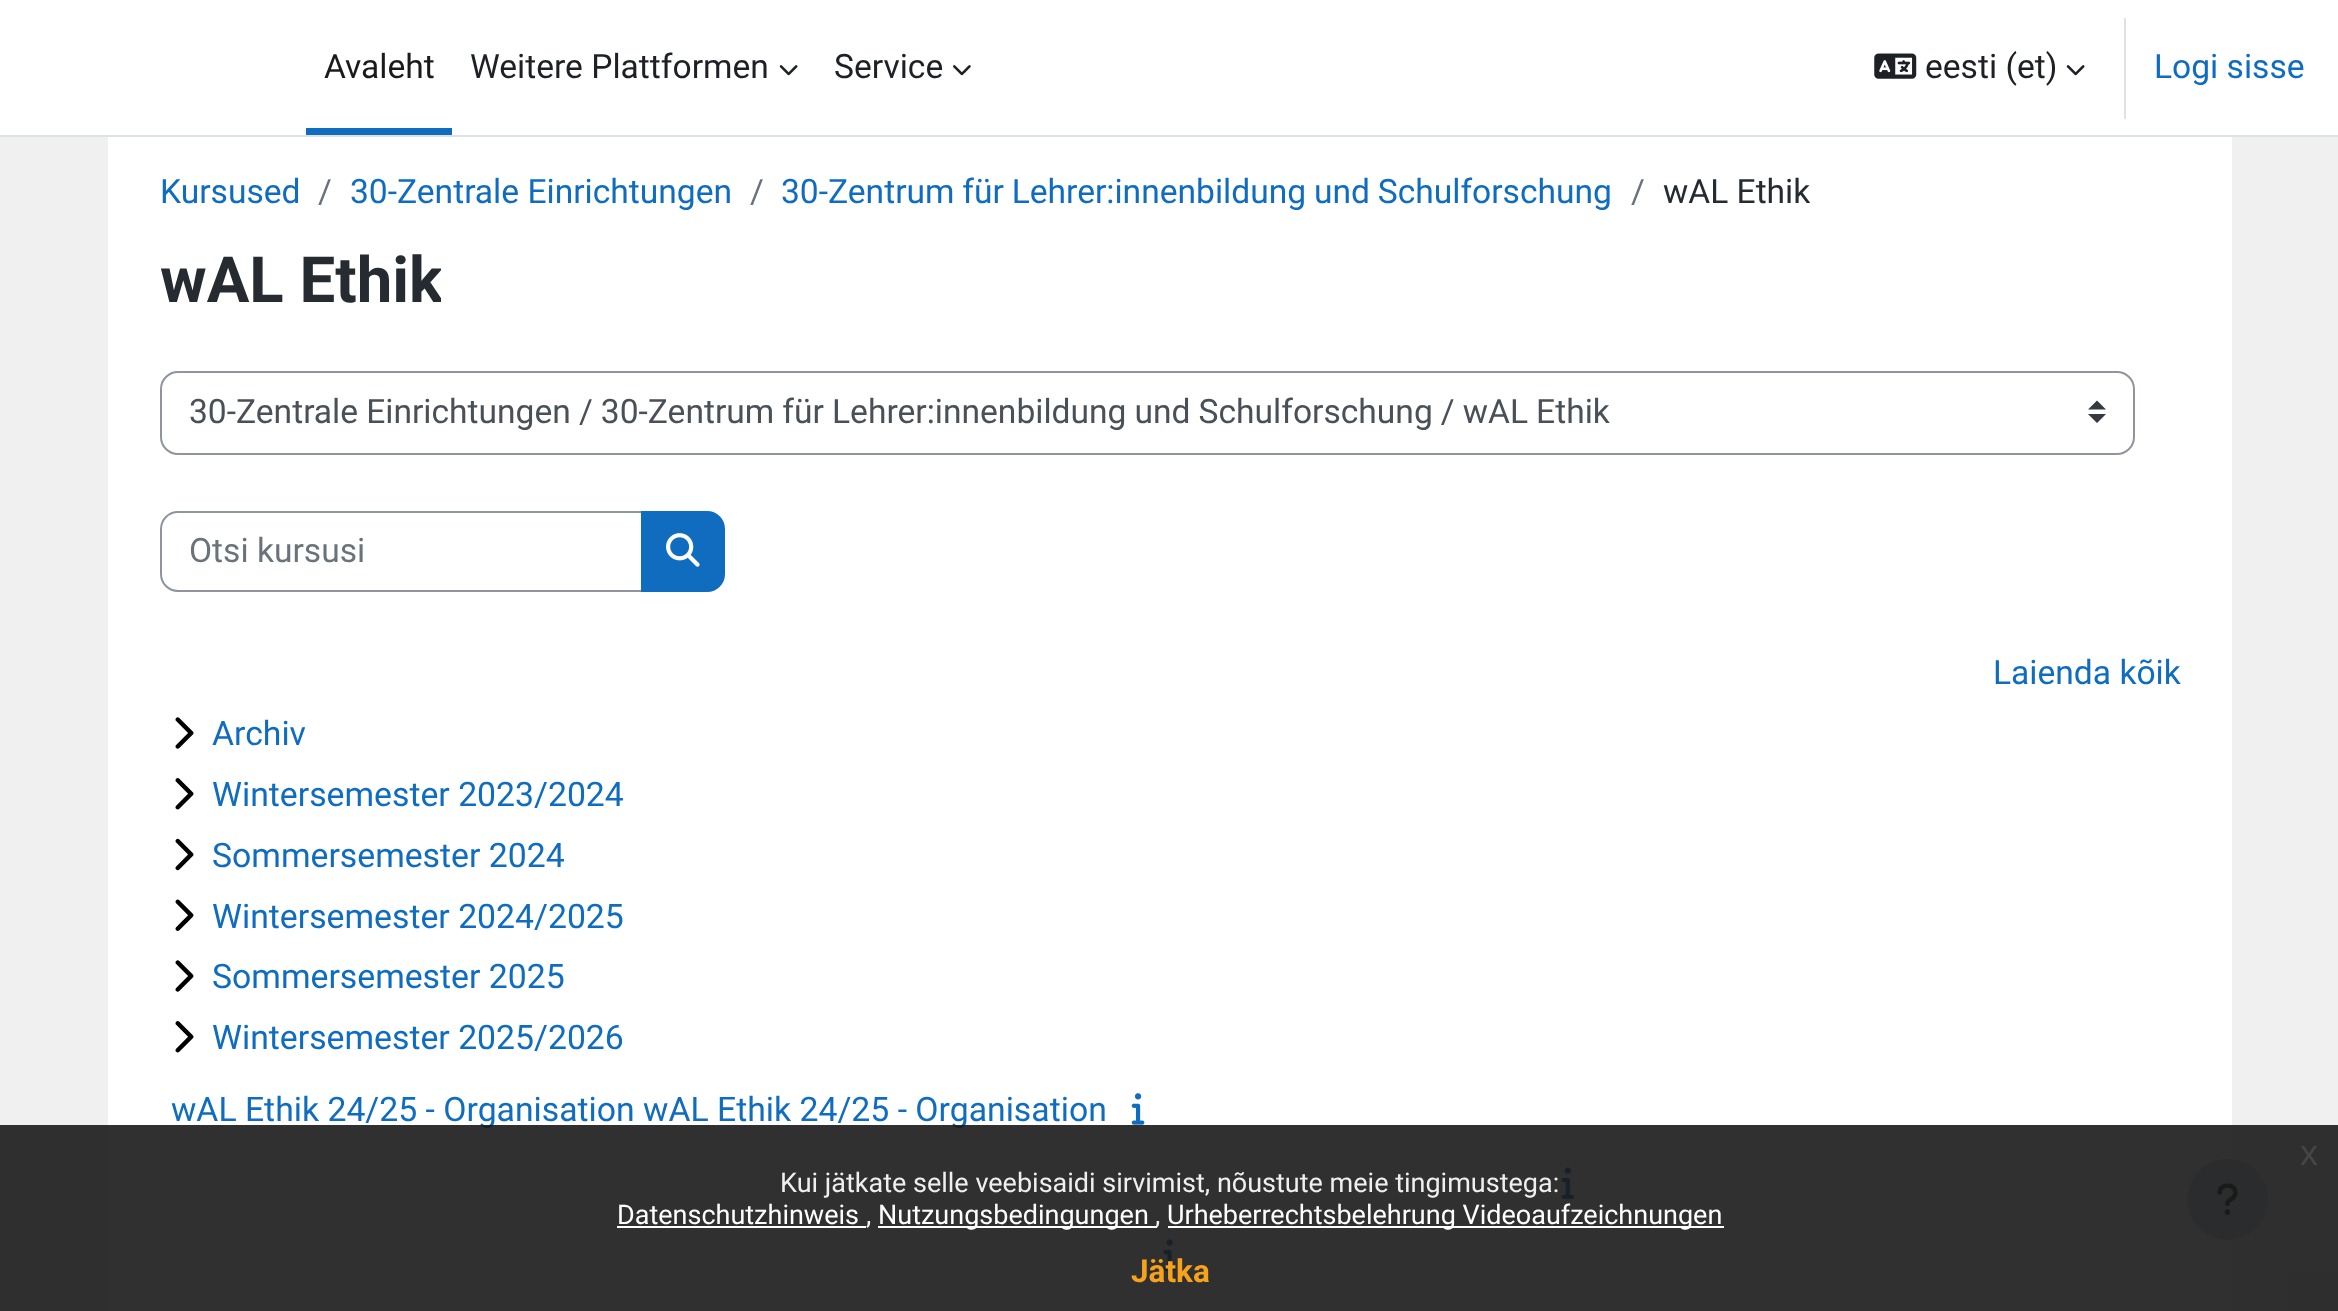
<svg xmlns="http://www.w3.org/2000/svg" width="2338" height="1311">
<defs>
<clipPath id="clip1"><rect x="160" y="234" width="281" height="95"/></clipPath>
</defs>
<rect width="100%" height="100%" fill="#f0f0f0"/>
<rect width="2338" height="135" fill="#fff"/>
<rect y="135" width="2338" height="2" fill="#dee2e6"/>
<rect x="306" y="128" width="146" height="7" fill="#0f6cbf"/>
<text x="324" y="78" style="font-family:Roboto;font-size:33.6px;fill:#1a1a1a">Avaleht</text>
<text x="470" y="78" style="font-family:Roboto;font-size:33.6px;fill:#1d2125">Weitere Plattformen</text>
<image x="779" y="65" width="19" height="11" href="media/1.png"/>
<text x="834" y="78" style="font-family:Roboto;font-size:33.6px;fill:#1d2125">Service</text>
<image x="953" y="65" width="18" height="11" href="media/2.png"/>
<image x="1874" y="53" width="43" height="26" href="media/3.png"/>
<text x="1925" y="78" style="font-family:Roboto;font-size:33.6px;fill:#1d2125">eesti (et)</text>
<image x="2066" y="65" width="19" height="11" href="media/1.png"/>
<rect x="2124" y="18" width="2" height="101" fill="#dee2e6"/>
<text x="2154" y="78" style="font-family:Roboto;font-size:33.6px;fill:#0f6cbf">Logi sisse</text>
<rect x="108" y="137" width="2124" height="1174" fill="#fff"/>
<text x="160" y="203" style="font-family:Roboto;font-size:33.6px;fill:#0f6cbf">Kursused</text>
<text x="318" y="203" style="font-family:Roboto;font-size:33.6px;fill:#6a737b">/</text>
<text x="350" y="203" style="font-family:Roboto;font-size:33.6px;fill:#0f6cbf">30-Zentrale Einrichtungen</text>
<text x="750" y="203" style="font-family:Roboto;font-size:33.6px;fill:#6a737b">/</text>
<text x="781" y="203" word-spacing="-0.5" style="font-family:Roboto;font-size:33.6px;fill:#0f6cbf">30-Zentrum für Lehrer:innenbildung und Schulforschung</text>
<text x="1631" y="203" style="font-family:Roboto;font-size:33.6px;fill:#6a737b">/</text>
<text x="1663" y="203" style="font-family:Roboto;font-size:33.6px;fill:#262a31">wAL Ethik</text>
<g clip-path="url(#clip1)">
<text x="160" y="302" style="font-family:Roboto;font-size:63.5px;font-weight:bold;fill:#262a31">wAL Ethik</text>
</g>
<path d="M2097 400.5l-9 9h18zm0 22.5l-9-9h18z" fill="#343a40"/>
<rect x="161" y="372" width="1973" height="82" rx="17" fill="none" stroke="#8f959e" stroke-width="2"/>
<text x="189" y="423" word-spacing="-0.25" style="font-family:Roboto;font-size:33.6px;fill:#495057">30-Zentrale Einrichtungen / 30-Zentrum für Lehrer:innenbildung und Schulforschung / wAL Ethik</text>
<path d="M178 512h465v79h-465c-9.5 0-17-7.5-17-17v-45c0-9.5 7.5-17 17-17z" fill="none" stroke="#8f959e" stroke-width="2"/>
<text x="189" y="562" style="font-family:Roboto;font-size:33.6px;fill:#6a737b">Otsi kursusi</text>
<path d="M642 512h65c9.5 0 17 7.5 17 17v45c0 9.5-7.5 17-17 17h-65z" fill="#0f6cbf" stroke="#0f6cbf" stroke-width="2"/>
<image x="666" y="533" width="34" height="34" href="media/4.png"/>
<text x="1993" y="684" style="font-family:Roboto;font-size:33.6px;fill:#0f6cbf">Laienda kõik</text>
<image x="175" y="717" width="19" height="32" href="media/5.png"/>
<text x="212" y="745" style="font-family:Roboto;font-size:33.75px;fill:#0f6cbf">Archiv</text>
<image x="175" y="778" width="19" height="32" href="media/6.png"/>
<text x="212" y="806" style="font-family:Roboto;font-size:33.75px;fill:#0f6cbf">Wintersemester 2023/2024</text>
<image x="175" y="838" width="19" height="33" href="media/7.png"/>
<text x="212" y="867" style="font-family:Roboto;font-size:33.75px;fill:#0f6cbf">Sommersemester 2024</text>
<image x="175" y="899" width="19" height="32" href="media/8.png"/>
<text x="212" y="928" style="font-family:Roboto;font-size:33.75px;fill:#0f6cbf">Wintersemester 2024/2025</text>
<image x="175" y="960" width="19" height="32" href="media/5.png"/>
<text x="212" y="988" style="font-family:Roboto;font-size:33.75px;fill:#0f6cbf">Sommersemester 2025</text>
<image x="175" y="1021" width="19" height="32" href="media/6.png"/>
<text x="212" y="1049" style="font-family:Roboto;font-size:33.75px;fill:#0f6cbf">Wintersemester 2025/2026</text>
<text x="171" y="1121" style="font-family:Roboto;font-size:33.75px;fill:#0f6cbf">wAL Ethik 24/25 - Organisation wAL Ethik 24/25 - Organisation</text>
<image x="1131" y="1093" width="14" height="32" href="media/9.png"/>
<image x="1561" y="1167" width="14" height="32" href="media/10.png"/>
<image x="1163" y="1239" width="13" height="32" href="media/11.png"/>
<circle cx="2227.5" cy="1199.5" r="40.5" fill="#ced4da"/>
<image x="2217" y="1183" width="21" height="32" href="media/12.png"/>
<rect y="1125" width="2338" height="186" fill="#191919e6"/>
<text x="2300" y="1165" style="font-family:Liberation Sans;font-size:36px;fill:#464646">x</text>
<text x="780" y="1192" style="font-family:Roboto;font-size:27px;fill:#efefef">Kui jätkate selle veebisaidi sirvimist, nõustute meie tingimustega:</text>
<text x="617" y="1224" style="font-family:Roboto;font-size:27px;fill:#fff">Datenschutzhinweis</text>
<rect x="617" y="1226" width="249" height="2" fill="#fff"/>
<text x="866" y="1224" style="font-family:Roboto;font-size:27px;fill:#efefef">,</text>
<rect x="878" y="1226" width="279" height="2" fill="#fff"/>
<text x="878" y="1224" style="font-family:Roboto;font-size:27px;fill:#fff">Nutzungsbedingungen</text>
<text x="1155" y="1224" style="font-family:Roboto;font-size:27px;fill:#efefef">,</text>
<rect x="1168" y="1226" width="556" height="2" fill="#fff"/>
<text x="1167" y="1224" style="font-family:Roboto;font-size:27px;fill:#fff">Urheberrechtsbelehrung Videoaufzeichnungen</text>
<text x="1131" y="1282" style="font-family:Roboto;font-size:31.5px;font-weight:bold;fill:#f6a21d">Jätka</text>
</svg>
